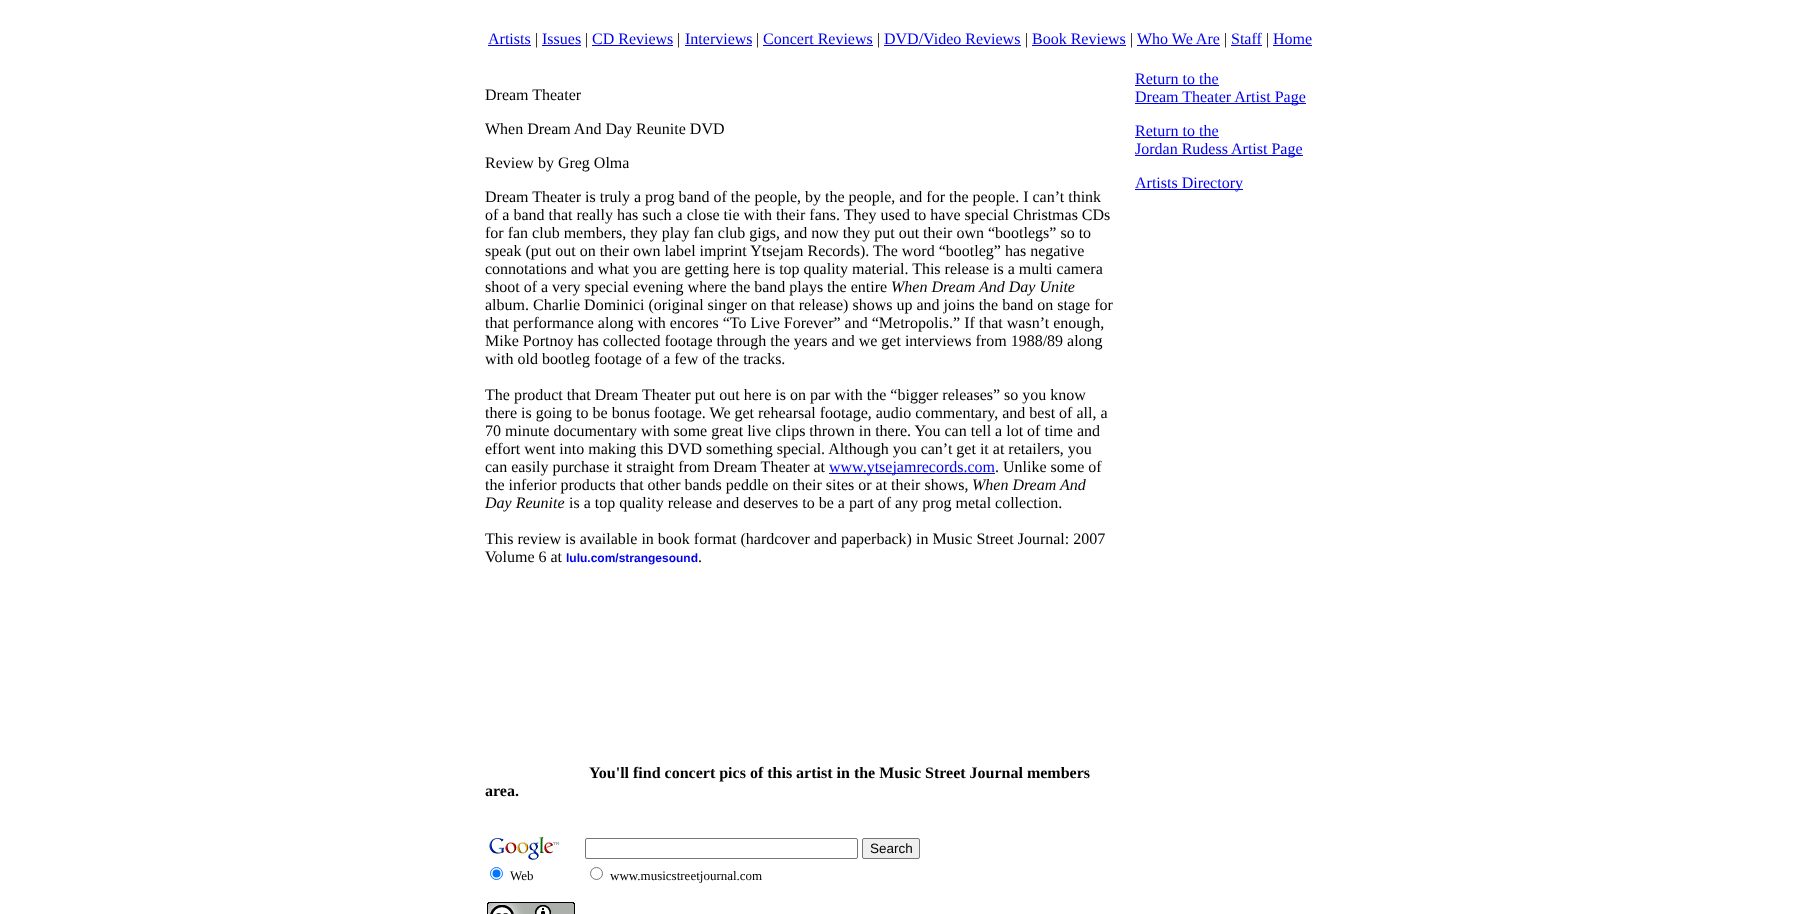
<svg xmlns="http://www.w3.org/2000/svg" width="1800" height="914">
<rect width="100%" height="100%" fill="#fff"/>
<text x="488" y="44" style="font-family:Liberation Serif;font-size:16px;fill:#00e">Artists</text>
<rect x="488" y="45" width="43" height="1" fill="#00e"/>
<text x="535" y="44" style="font-family:Liberation Serif;font-size:16px;fill:#000">|</text>
<text x="542" y="44" style="font-family:Liberation Serif;font-size:16px;fill:#00e">Issues</text>
<rect x="542" y="45" width="39" height="1" fill="#00e"/>
<text x="585" y="44" style="font-family:Liberation Serif;font-size:16px;fill:#000">|</text>
<text x="592" y="44" style="font-family:Liberation Serif;font-size:16px;fill:#00e">CD Reviews</text>
<rect x="592" y="45" width="81" height="1" fill="#00e"/>
<text x="677" y="44" style="font-family:Liberation Serif;font-size:16px;fill:#000">|</text>
<text x="685" y="44" style="font-family:Liberation Serif;font-size:16px;fill:#00e">Interviews</text>
<rect x="685" y="45" width="67" height="1" fill="#00e"/>
<text x="756" y="44" style="font-family:Liberation Serif;font-size:16px;fill:#000">|</text>
<text x="763" y="44" style="font-family:Liberation Serif;font-size:16px;fill:#00e">Concert Reviews</text>
<rect x="763" y="45" width="110" height="1" fill="#00e"/>
<text x="877" y="44" style="font-family:Liberation Serif;font-size:16px;fill:#000">|</text>
<text x="884" y="44" style="font-family:Liberation Serif;font-size:16px;fill:#00e">DVD/Video Reviews</text>
<rect x="884" y="45" width="137" height="1" fill="#00e"/>
<text x="1025" y="44" style="font-family:Liberation Serif;font-size:16px;fill:#000">|</text>
<text x="1032" y="44" style="font-family:Liberation Serif;font-size:16px;fill:#00e">Book Reviews</text>
<rect x="1032" y="45" width="94" height="1" fill="#00e"/>
<text x="1130" y="44" style="font-family:Liberation Serif;font-size:16px;fill:#000">|</text>
<text x="1137" y="44" style="font-family:Liberation Serif;font-size:16px;fill:#00e">Who We Are</text>
<rect x="1137" y="45" width="83" height="1" fill="#00e"/>
<text x="1224" y="44" style="font-family:Liberation Serif;font-size:16px;fill:#000">|</text>
<text x="1231" y="44" style="font-family:Liberation Serif;font-size:16px;fill:#00e">Staff</text>
<rect x="1231" y="45" width="31" height="1" fill="#00e"/>
<text x="1266" y="44" style="font-family:Liberation Serif;font-size:16px;fill:#000">|</text>
<text x="1273" y="44" style="font-family:Liberation Serif;font-size:16px;fill:#00e">Home</text>
<rect x="1273" y="45" width="39" height="1" fill="#00e"/>
<text x="485" y="100" style="font-family:Liberation Serif;font-size:16px;fill:#000">Dream Theater</text>
<text x="485" y="134" style="font-family:Liberation Serif;font-size:16px;fill:#000">When Dream And Day Reunite DVD</text>
<text x="485" y="168" style="font-family:Liberation Serif;font-size:16px;fill:#000">Review by Greg Olma</text>
<text x="485" y="202" style="font-family:Liberation Serif;font-size:16px;fill:#000">Dream Theater is truly a prog band of the people, by the people, and for the people. I can’t think</text>
<text x="485" y="220" style="font-family:Liberation Serif;font-size:16px;fill:#000">of a band that really has such a close tie with their fans. They used to have special Christmas CDs</text>
<text x="485" y="238" style="font-family:Liberation Serif;font-size:16px;fill:#000">for fan club members, they play fan club gigs, and now they put out their own “bootlegs” so to</text>
<text x="485" y="256" style="font-family:Liberation Serif;font-size:16px;fill:#000">speak (put out on their own label imprint Ytsejam Records). The word “bootleg” has negative</text>
<text x="485" y="274" style="font-family:Liberation Serif;font-size:16px;fill:#000">connotations and what you are getting here is top quality material. This release is a multi camera</text>
<text x="485" y="292" style="font-family:Liberation Serif;font-size:16px;fill:#000">shoot of a very special evening where the band plays the entire</text>
<text x="891" y="292" style="font-family:Liberation Serif;font-size:16px;font-style:italic;fill:#000">When Dream And Day Unite</text>
<text x="485" y="310" style="font-family:Liberation Serif;font-size:16px;fill:#000">album. Charlie Dominici (original singer on that release) shows up and joins the band on stage for</text>
<text x="485" y="328" style="font-family:Liberation Serif;font-size:16px;fill:#000">that performance along with encores “To Live Forever” and “Metropolis.” If that wasn’t enough,</text>
<text x="485" y="346" style="font-family:Liberation Serif;font-size:16px;fill:#000">Mike Portnoy has collected footage through the years and we get interviews from 1988/89 along</text>
<text x="485" y="364" style="font-family:Liberation Serif;font-size:16px;fill:#000">with old bootleg footage of a few of the tracks.</text>
<text x="485" y="400" style="font-family:Liberation Serif;font-size:16px;fill:#000">The product that Dream Theater put out here is on par with the “bigger releases” so you know</text>
<text x="485" y="418" style="font-family:Liberation Serif;font-size:16px;fill:#000">there is going to be bonus footage. We get rehearsal footage, audio commentary, and best of all, a</text>
<text x="485" y="436" style="font-family:Liberation Serif;font-size:16px;fill:#000">70 minute documentary with some great live clips thrown in there. You can tell a lot of time and</text>
<text x="485" y="454" style="font-family:Liberation Serif;font-size:16px;fill:#000">effort went into making this DVD something special. Although you can’t get it at retailers, you</text>
<text x="485" y="472" style="font-family:Liberation Serif;font-size:16px;fill:#000">can easily purchase it straight from Dream Theater at</text>
<rect x="829" y="473" width="166" height="1" fill="#00e"/>
<text x="829" y="472" style="font-family:Liberation Serif;font-size:16px;fill:#00e">www.ytsejamrecords.com</text>
<text x="995" y="472" style="font-family:Liberation Serif;font-size:16px;fill:#000">. Unlike some of</text>
<text x="485" y="490" style="font-family:Liberation Serif;font-size:16px;fill:#000">the inferior products that other bands peddle on their sites or at their shows,</text>
<text x="972" y="490" style="font-family:Liberation Serif;font-size:16px;font-style:italic;fill:#000">When Dream And</text>
<text x="485" y="508" style="font-family:Liberation Serif;font-size:16px;font-style:italic;fill:#000">Day Reunite</text>
<text x="569" y="508" style="font-family:Liberation Serif;font-size:16px;fill:#000">is a top quality release and deserves to be a part of any prog metal collection.</text>
<text x="485" y="544" style="font-family:Liberation Serif;font-size:16px;fill:#000">This review is available in book format (hardcover and paperback) in Music Street Journal: 2007</text>
<text x="485" y="562" style="font-family:Liberation Serif;font-size:16px;fill:#000">Volume 6 at</text>
<text x="566" y="562" style="font-family:Liberation Sans;font-size:12px;font-weight:bold;fill:#00e">lulu.com/strangesound</text>
<text x="698" y="562" style="font-family:Liberation Serif;font-size:16px;fill:#000">.</text>
<text x="589" y="778" style="font-family:Liberation Serif;font-size:16px;font-weight:bold;fill:#000">You'll find concert pics of this artist in the Music Street Journal members</text>
<text x="485" y="796" style="font-family:Liberation Serif;font-size:16px;font-weight:bold;fill:#000">area.</text>
<text x="1135" y="84" style="font-family:Liberation Serif;font-size:16px;fill:#00e">Return to the</text>
<rect x="1135" y="85" width="84" height="1" fill="#00e"/>
<rect x="1135" y="103" width="171" height="1" fill="#00e"/>
<text x="1135" y="102" style="font-family:Liberation Serif;font-size:16px;fill:#00e">Dream Theater Artist Page</text>
<text x="1135" y="136" style="font-family:Liberation Serif;font-size:16px;fill:#00e">Return to the</text>
<rect x="1135" y="137" width="84" height="1" fill="#00e"/>
<rect x="1135" y="155" width="168" height="1" fill="#00e"/>
<text x="1135" y="154" style="font-family:Liberation Serif;font-size:16px;fill:#00e">Jordan Rudess Artist Page</text>
<rect x="1135" y="189" width="108" height="1" fill="#00e"/>
<text x="1135" y="188" style="font-family:Liberation Serif;font-size:16px;fill:#00e">Artists Directory</text>
<image x="489" y="837" width="70" height="23" href="media/1.png"/>
<rect x="585.5" y="838.5" width="272" height="20" rx="1.5" fill="none" stroke="#767676"/>
<rect x="862.5" y="838.5" width="57" height="20" rx="1.5" fill="#efefef" stroke="#767676"/>
<text x="870" y="853" style="font-family:Liberation Sans;font-size:13.5px;fill:#000">Search</text>
<circle cx="496.5" cy="873.5" r="6" fill="none" stroke="#0075ff"/>
<circle cx="496.5" cy="873.5" r="4" fill="#0075ff"/>
<text x="510" y="880" style="font-family:Liberation Serif;font-size:13px;fill:#000">Web</text>
<circle cx="596.5" cy="873.5" r="6" fill="none" stroke="#767676"/>
<text x="610" y="880" style="font-family:Liberation Serif;font-size:13px;fill:#000">www.musicstreetjournal.com</text>
<image x="487" y="902" width="88" height="12" href="media/2.png"/>
</svg>
